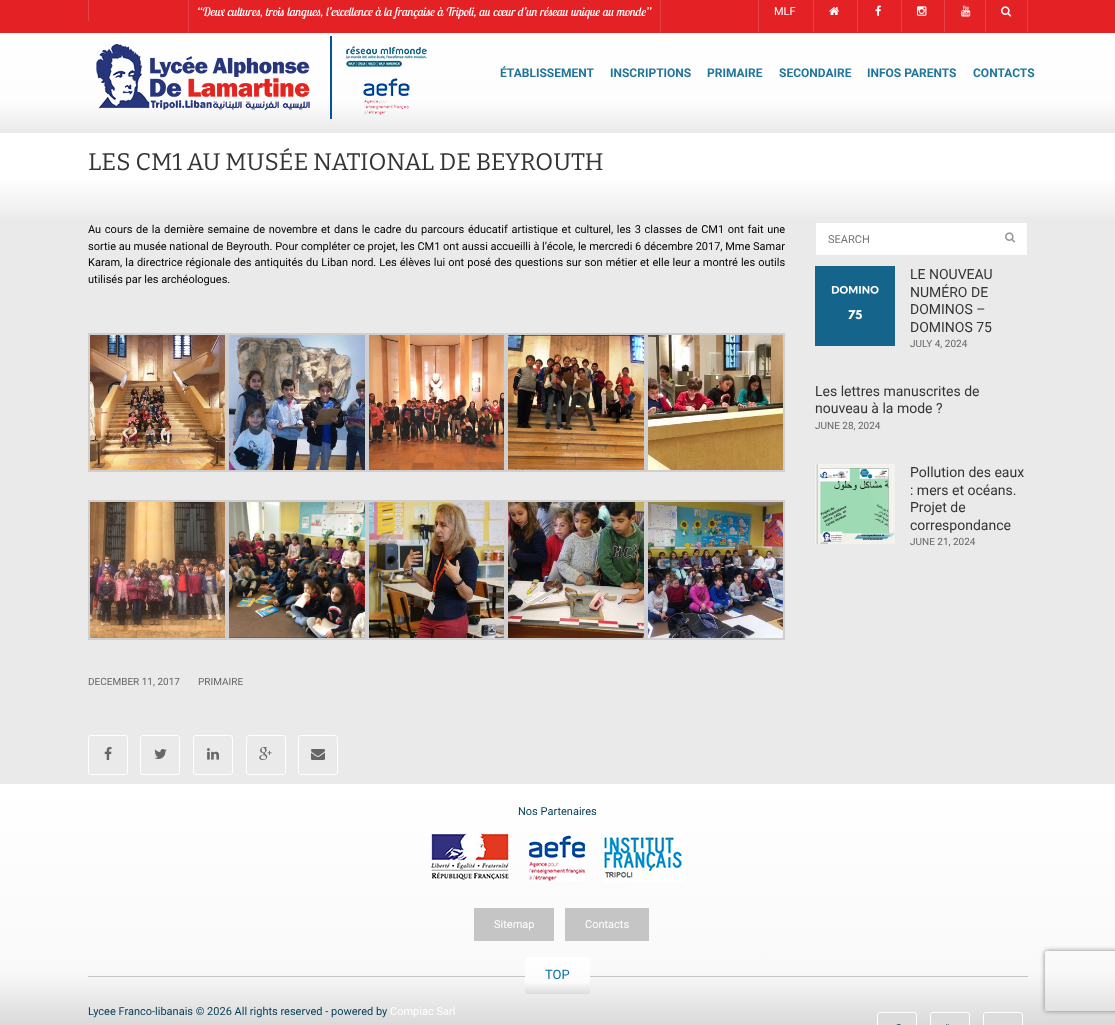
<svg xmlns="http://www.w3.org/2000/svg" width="1115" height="1025">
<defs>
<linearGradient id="g1" gradientUnits="userSpaceOnUse" x1="558" y1="33" x2="558" y2="133"><stop offset="0" stop-color="#fff"/><stop offset="0.68" stop-color="#fdfdfd"/><stop offset="1" stop-color="#eaeaea"/></linearGradient>
<linearGradient id="g2" gradientUnits="userSpaceOnUse" x1="558" y1="222" x2="558" y2="133"><stop offset="0" stop-color="#eaeaea"/><stop offset="0.5" stop-color="#fff"/><stop offset="1" stop-color="#fff"/></linearGradient>
<linearGradient id="g3" gradientUnits="userSpaceOnUse" x1="558" y1="784" x2="558" y2="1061"><stop offset="0" stop-color="#fff"/><stop offset="0.68" stop-color="#f9f9f9"/><stop offset="1" stop-color="#c4c4c4"/></linearGradient>
<linearGradient id="g4" gradientUnits="userSpaceOnUse" x1="558" y1="957" x2="558" y2="994"><stop offset="0" stop-color="#fff"/><stop offset="0.68" stop-color="#fff" stop-opacity="0.9"/><stop offset="1" stop-color="#fff" stop-opacity="0"/></linearGradient>
<clipPath id="clip1"><path d="M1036 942h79v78h-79zm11 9h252c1 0 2 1 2 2v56c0 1-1 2-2 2h-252c-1 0-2-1-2-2v-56c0-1 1-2 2-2z" clip-rule="evenodd"/></clipPath>
</defs>
<rect width="100%" height="100%" fill="#eaeaea"/>
<rect width="1115" height="33" fill="#e42125"/>
<rect x="88" width="1" height="21" fill="#e84246"/>
<rect x="660" width="1" height="33" fill="#e84246"/>
<rect x="188" width="1" height="33" fill="#e84246"/>
<text x="197" y="16" style="font-family:Lobster Two;font-size:12px;font-style:italic;fill:#fff">“Deux cultures, trois langues, l’excellence à la française à Tripoli, au cœur d’un réseau unique au monde”</text>
<rect x="758" width="1" height="32" fill="#e84246"/>
<text x="774" y="15" style="font-family:Roboto;font-size:11px;fill:#fff">MLF</text>
<rect x="813" width="1" height="32" fill="#e84246"/>
<image x="829" y="7" width="10" height="8" href="media/1.png"/>
<rect x="857" width="1" height="32" fill="#e84246"/>
<image x="875" y="5" width="6" height="11" href="media/2.png"/>
<rect x="901" width="1" height="32" fill="#e84246"/>
<image x="917" y="6" width="10" height="10" href="media/3.png"/>
<rect x="944" width="1" height="32" fill="#e84246"/>
<image x="961" y="5" width="10" height="12" href="media/4.png"/>
<rect x="1027" width="1" height="32" fill="#e84246"/>
<rect x="985" width="1" height="32" fill="#e84246"/>
<image x="1001" y="6" width="11" height="11" href="media/5.png"/>
<rect y="33" width="1115" height="96" fill="url(#g1)"/>
<image x="96" y="36" width="331" height="83" href="media/6.png"/>
<text x="500" y="77" style="font-family:Roboto;font-size:12px;font-weight:bold;fill:#21759a">ÉTABLISSEMENT</text>
<text x="610" y="77" style="font-family:Roboto;font-size:12px;font-weight:bold;fill:#21759a">INSCRIPTIONS</text>
<text x="707" y="77" style="font-family:Roboto;font-size:12px;font-weight:bold;fill:#21759a">PRIMAIRE</text>
<text x="779" y="77" style="font-family:Roboto;font-size:12px;font-weight:bold;fill:#21759a">SECONDAIRE</text>
<text x="867" y="77" style="font-family:Roboto;font-size:12px;font-weight:bold;fill:#21759a">INFOS PARENTS</text>
<text x="973" y="77" style="font-family:Roboto;font-size:12px;font-weight:bold;fill:#21759a">CONTACTS</text>
<rect y="133" width="1115" height="84" fill="url(#g2)"/>
<text x="88" y="170" style="font-family:Bitter;font-size:24px;font-weight:100;fill:#343434">LES CM1 AU MUSÉE NATIONAL DE BEYROUTH</text>
<text x="88" y="233" word-spacing="0.95" style="font-family:Roboto;font-size:11px;fill:#000">Au cours de la dernière semaine de novembre et dans le cadre du parcours éducatif artistique et culturel, les 3 classes de CM1 ont fait une</text>
<text x="88" y="250" style="font-family:Roboto;font-size:11px;fill:#000">sortie au musée national de Beyrouth. Pour compléter ce projet, les CM1 ont aussi accueilli à l’école, le mercredi 6 décembre 2017, Mme Samar</text>
<text x="88" y="266" word-spacing="0.3" style="font-family:Roboto;font-size:11px;fill:#000">Karam, la directrice régionale des antiquités du Liban nord. Les élèves lui ont posé des questions sur son métier et elle leur a montré les outils</text>
<text x="88" y="283" style="font-family:Roboto;font-size:11px;fill:#000">utilisés par les archéologues.</text>
<rect x="89" y="334" width="137" height="137" fill="none" stroke="#cfcfcf" stroke-width="2"/>
<image x="90" y="335" width="135" height="135" href="media/7.png"/>
<rect x="228" y="334" width="138" height="137" fill="none" stroke="#cfcfcf" stroke-width="2"/>
<image x="229" y="335" width="136" height="135" href="media/8.png"/>
<rect x="368" y="334" width="137" height="137" fill="none" stroke="#cfcfcf" stroke-width="2"/>
<image x="369" y="335" width="135" height="135" href="media/9.png"/>
<rect x="507" y="334" width="138" height="137" fill="none" stroke="#cfcfcf" stroke-width="2"/>
<image x="508" y="335" width="136" height="135" href="media/10.png"/>
<rect x="647" y="334" width="137" height="137" fill="none" stroke="#cfcfcf" stroke-width="2"/>
<image x="648" y="335" width="135" height="135" href="media/11.png"/>
<rect x="89" y="501" width="137" height="138" fill="none" stroke="#cfcfcf" stroke-width="2"/>
<image x="90" y="502" width="135" height="136" href="media/12.png"/>
<rect x="228" y="501" width="138" height="138" fill="none" stroke="#cfcfcf" stroke-width="2"/>
<image x="229" y="502" width="136" height="136" href="media/13.png"/>
<rect x="368" y="501" width="137" height="138" fill="none" stroke="#cfcfcf" stroke-width="2"/>
<image x="369" y="502" width="135" height="136" href="media/14.png"/>
<rect x="507" y="501" width="138" height="138" fill="none" stroke="#cfcfcf" stroke-width="2"/>
<image x="508" y="502" width="136" height="136" href="media/15.png"/>
<rect x="647" y="501" width="137" height="138" fill="none" stroke="#cfcfcf" stroke-width="2"/>
<image x="648" y="502" width="135" height="136" href="media/16.png"/>
<text x="88" y="685" style="font-family:Roboto;font-size:10px;fill:#666">DECEMBER 11, 2017</text>
<text x="198" y="685" style="font-family:Roboto;font-size:10px;fill:#666">PRIMAIRE</text>
<rect x="88.5" y="735.5" width="39" height="39" rx="2.5" fill="none" stroke="#fff"/>
<image x="104" y="747" width="8" height="13" href="media/17.png"/>
<rect x="140.5" y="735.5" width="39" height="39" rx="2.5" fill="none" stroke="#fff"/>
<image x="154" y="749" width="13" height="10" href="media/18.png"/>
<rect x="193.5" y="735.5" width="39" height="39" rx="2.5" fill="none" stroke="#fff"/>
<image x="207" y="748" width="12" height="12" href="media/19.png"/>
<rect x="246.5" y="735.5" width="39" height="39" rx="2.5" fill="none" stroke="#fff"/>
<image x="259" y="747" width="13" height="13" href="media/20.png"/>
<rect x="298.5" y="735.5" width="39" height="39" rx="2.5" fill="none" stroke="#fff"/>
<image x="311" y="749" width="14" height="11" href="media/21.png"/>
<rect x="816" y="223" width="211" height="32" fill="#fff"/>
<text x="828" y="243" style="font-family:Roboto;font-size:11px;fill:#757575">SEARCH</text>
<image x="1005" y="232" width="11" height="11" href="media/22.png"/>
<image x="815" y="266" width="80" height="80" href="media/23.png"/>
<text x="910" y="279" style="font-family:Roboto;font-size:14px;fill:#343434">LE NOUVEAU</text>
<text x="910" y="297" style="font-family:Roboto;font-size:14px;fill:#343434">NUMÉRO DE</text>
<text x="910" y="314" style="font-family:Roboto;font-size:14px;fill:#343434">DOMINOS –</text>
<text x="910" y="332" style="font-family:Roboto;font-size:14px;fill:#343434">DOMINOS 75</text>
<text x="910" y="347" style="font-family:Roboto;font-size:10px;fill:#666">JULY 4, 2024</text>
<text x="815" y="396" style="font-family:Roboto;font-size:14px;fill:#343434">Les lettres manuscrites de</text>
<text x="815" y="413" style="font-family:Roboto;font-size:14px;fill:#343434">nouveau à la mode ?</text>
<text x="815" y="429" style="font-family:Roboto;font-size:10px;fill:#666">JUNE 28, 2024</text>
<image x="815" y="464" width="80" height="80" href="media/24.png"/>
<text x="910" y="477" style="font-family:Roboto;font-size:14px;fill:#343434">Pollution des eaux</text>
<text x="910" y="495" style="font-family:Roboto;font-size:14px;fill:#343434">: mers et océans.</text>
<text x="910" y="512" style="font-family:Roboto;font-size:14px;fill:#343434">Projet de</text>
<text x="910" y="530" style="font-family:Roboto;font-size:14px;fill:#343434">correspondance</text>
<text x="910" y="545" style="font-family:Roboto;font-size:10px;fill:#666">JUNE 21, 2024</text>
<rect y="784" width="1115" height="241" fill="url(#g3)"/>
<text x="518" y="815" style="font-family:Roboto;font-size:11px;fill:#023d54">Nos Partenaires</text>
<image x="431" y="831" width="78" height="49" href="media/25.png"/>
<image x="529" y="835" width="56" height="46" href="media/26.png"/>
<image x="601" y="833" width="83" height="49" href="media/27.png"/>
<rect x="474" y="908" width="80" height="33" fill="#c5c5c5"/>
<text x="494" y="928" style="font-family:Roboto;font-size:11px;fill:#fff">Sitemap</text>
<rect x="565" y="908" width="84" height="33" fill="#c5c5c5"/>
<text x="585" y="928" style="font-family:Roboto;font-size:11px;fill:#fff">Contacts</text>
<rect x="88" y="976" width="940" height="1" fill="#c5c5c5"/>
<rect x="525" y="957" width="65" height="37" rx="2" fill="#dcdcdc"/>
<rect x="525" y="957" width="65" height="37" rx="2" fill="url(#g4)"/>
<text x="545" y="979" style="font-family:Roboto;font-size:13px;fill:#0071a2">TOP</text>
<text x="88" y="1015" style="font-family:Roboto;font-size:11px;fill:#023d54">Lycee Franco-libanais © 2026 All rights reserved - powered by</text>
<text x="390" y="1015" style="font-family:Roboto;font-size:11px;fill:#fff">Compiac Sarl</text>
<rect x="877.5" y="1012.5" width="39" height="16" rx="2.5" fill="#dcdcdc" stroke="#fff"/>
<image x="896" y="1024" width="5" height="1" href="media/28.png"/>
<rect x="930.5" y="1012.5" width="39" height="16" rx="2.5" fill="#dcdcdc" stroke="#fff"/>
<image x="946" y="1024" width="3" height="1" href="media/29.png"/>
<rect x="983.5" y="1012.5" width="39" height="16" rx="2.5" fill="#dcdcdc" stroke="#fff"/>
<g clip-path="url(#clip1)">
<rect x="1045" y="951" width="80" height="60" rx="2" fill="#808080" filter="blur(2.5px)"/>
</g>
</svg>
